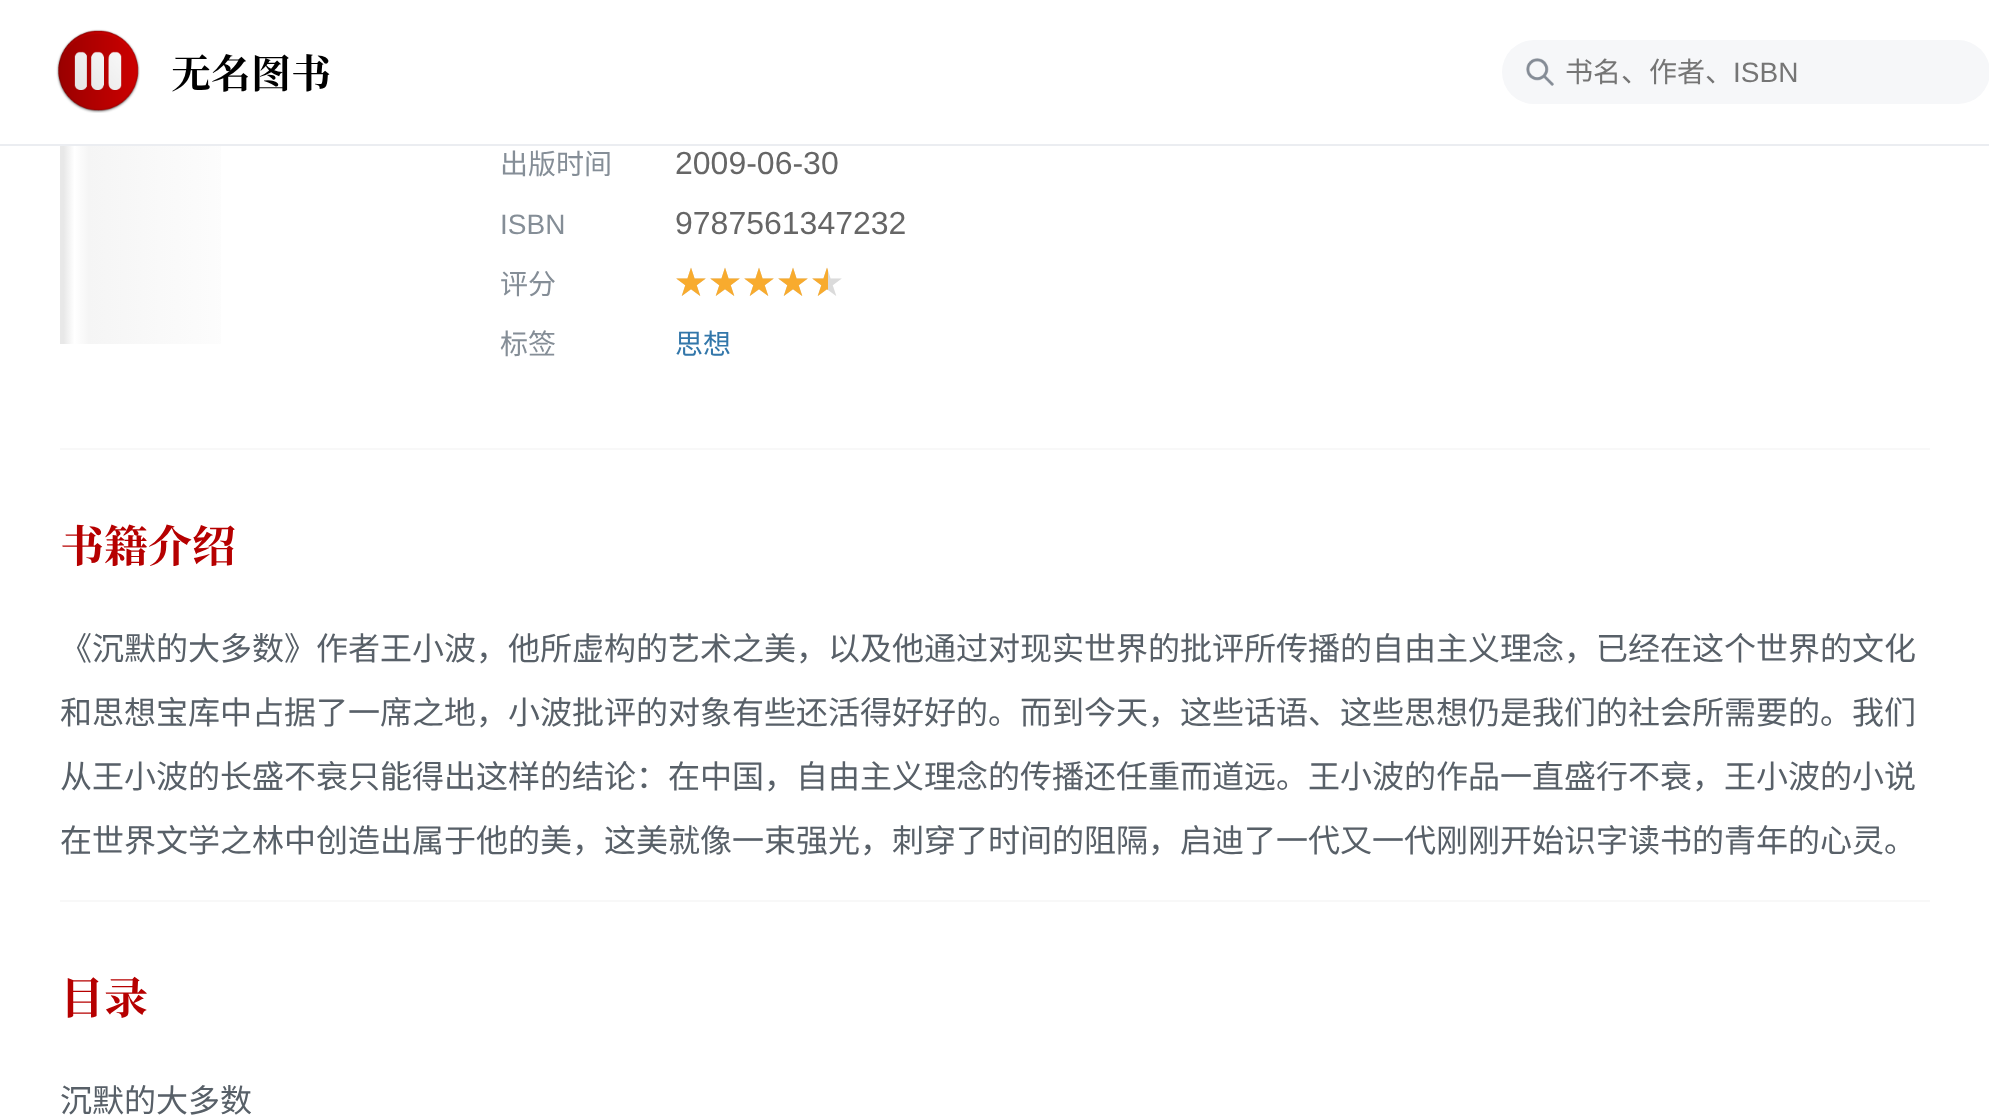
<svg xmlns="http://www.w3.org/2000/svg" width="1989" height="1119">
<defs>
<linearGradient id="g1" gradientUnits="userSpaceOnUse" x1="60" y1="124" x2="420" y2="124"><stop offset="0" stop-color="#e8e8e8"/><stop offset="0.01" stop-color="#e8e8e8"/><stop offset="0.04" stop-color="#fff"/><stop offset="0.08" stop-color="#f5f5f5"/><stop offset="0.57" stop-color="#fff"/><stop offset="0.91" stop-color="#fefefe"/><stop offset="0.98" stop-color="#fefefe"/><stop offset="1" stop-color="#fff"/></linearGradient>
<clipPath id="clip1"><rect x="676" y="260" width="152" height="48"/></clipPath>
</defs>
<rect width="100%" height="100%" fill="#fff"/>
<rect y="144" width="1989" height="2" fill="#ebedf1"/>
<image x="56" y="29" width="84" height="84" href="media/1.png"/>
<text x="171" y="88" style="font-family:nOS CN;font-size:40px;font-weight:bold;fill:#000">无名图书</text>
<rect x="1502" y="40" width="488" height="64" rx="32" fill="#f6f7f9"/>
<image x="1526" y="58" width="28" height="28" href="media/2.png"/>
<text x="1565" y="82" style="font-family:Noto Sans CJK SC;font-size:28px;fill:#757575">书名、作者、</text>
<text x="1733" y="82" style="font-family:Liberation Sans;font-size:28px;fill:#757575">ISBN</text>
<rect x="60" y="448" width="1870" height="2" fill="#f8f8f8"/>
<rect x="60" y="146" width="161" height="198" fill="url(#g1)"/>
<text x="500" y="174" style="font-family:Noto Sans CJK SC;font-size:28px;fill:#858e97">出版时间</text>
<text x="675" y="174" style="font-family:Liberation Sans;font-size:32px;fill:#666">2009-06-30</text>
<text x="500" y="234" style="font-family:Liberation Sans;font-size:28px;fill:#858e97">ISBN</text>
<text x="675" y="234" style="font-family:Liberation Sans;font-size:32px;fill:#666">9787561347232</text>
<text x="500" y="294" style="font-family:Noto Sans CJK SC;font-size:28px;fill:#858e97">评分</text>
<text x="675" y="294" style="font-family:Noto Sans CJK SC;font-size:32px;letter-spacing:2px;fill:#dbdbdb">★★★★★</text>
<g clip-path="url(#clip1)">
<text x="675" y="294" style="font-family:Noto Sans CJK SC;font-size:32px;letter-spacing:2px;fill:#f8ab2e">★★★★★</text>
</g>
<text x="500" y="354" style="font-family:Noto Sans CJK SC;font-size:28px;fill:#858e97">标签</text>
<text x="675" y="354" style="font-family:Noto Sans CJK SC;font-size:28px;fill:#37a">思想</text>
<rect x="60" y="900" width="1870" height="2" fill="#f8f8f8"/>
<text x="60" y="562" style="font-family:nOS CN;font-size:44px;font-weight:bold;fill:#b60000">书籍介绍</text>
<text x="60" y="660" style="font-family:Noto Sans CJK SC;font-size:32px;fill:#586068">《沉默的大多数》作者王小波，他所虚构的艺术之美，以及他通过对现实世界的批评所传播的自由主义理念，已经在这个世界的文化</text>
<text x="60" y="724" style="font-family:Noto Sans CJK SC;font-size:32px;fill:#586068">和思想宝库中占据了一席之地，小波批评的对象有些还活得好好的。而到今天，这些话语、这些思想仍是我们的社会所需要的。我们</text>
<text x="60" y="788" style="font-family:Noto Sans CJK SC;font-size:32px;fill:#586068">从王小波的长盛不衰只能得出这样的结论：在中国，自由主义理念的传播还任重而道远。王小波的作品一直盛行不衰，王小波的小说</text>
<text x="60" y="852" style="font-family:Noto Sans CJK SC;font-size:32px;fill:#586068">在世界文学之林中创造出属于他的美，这美就像一束强光，刺穿了时间的阻隔，启迪了一代又一代刚刚开始识字读书的青年的心灵。</text>
<text x="60" y="1014" style="font-family:nOS CN;font-size:44px;font-weight:bold;fill:#b60000">目录</text>
<text x="60" y="1112" style="font-family:Noto Sans CJK SC;font-size:32px;fill:#586068">沉默的大多数</text>
</svg>
